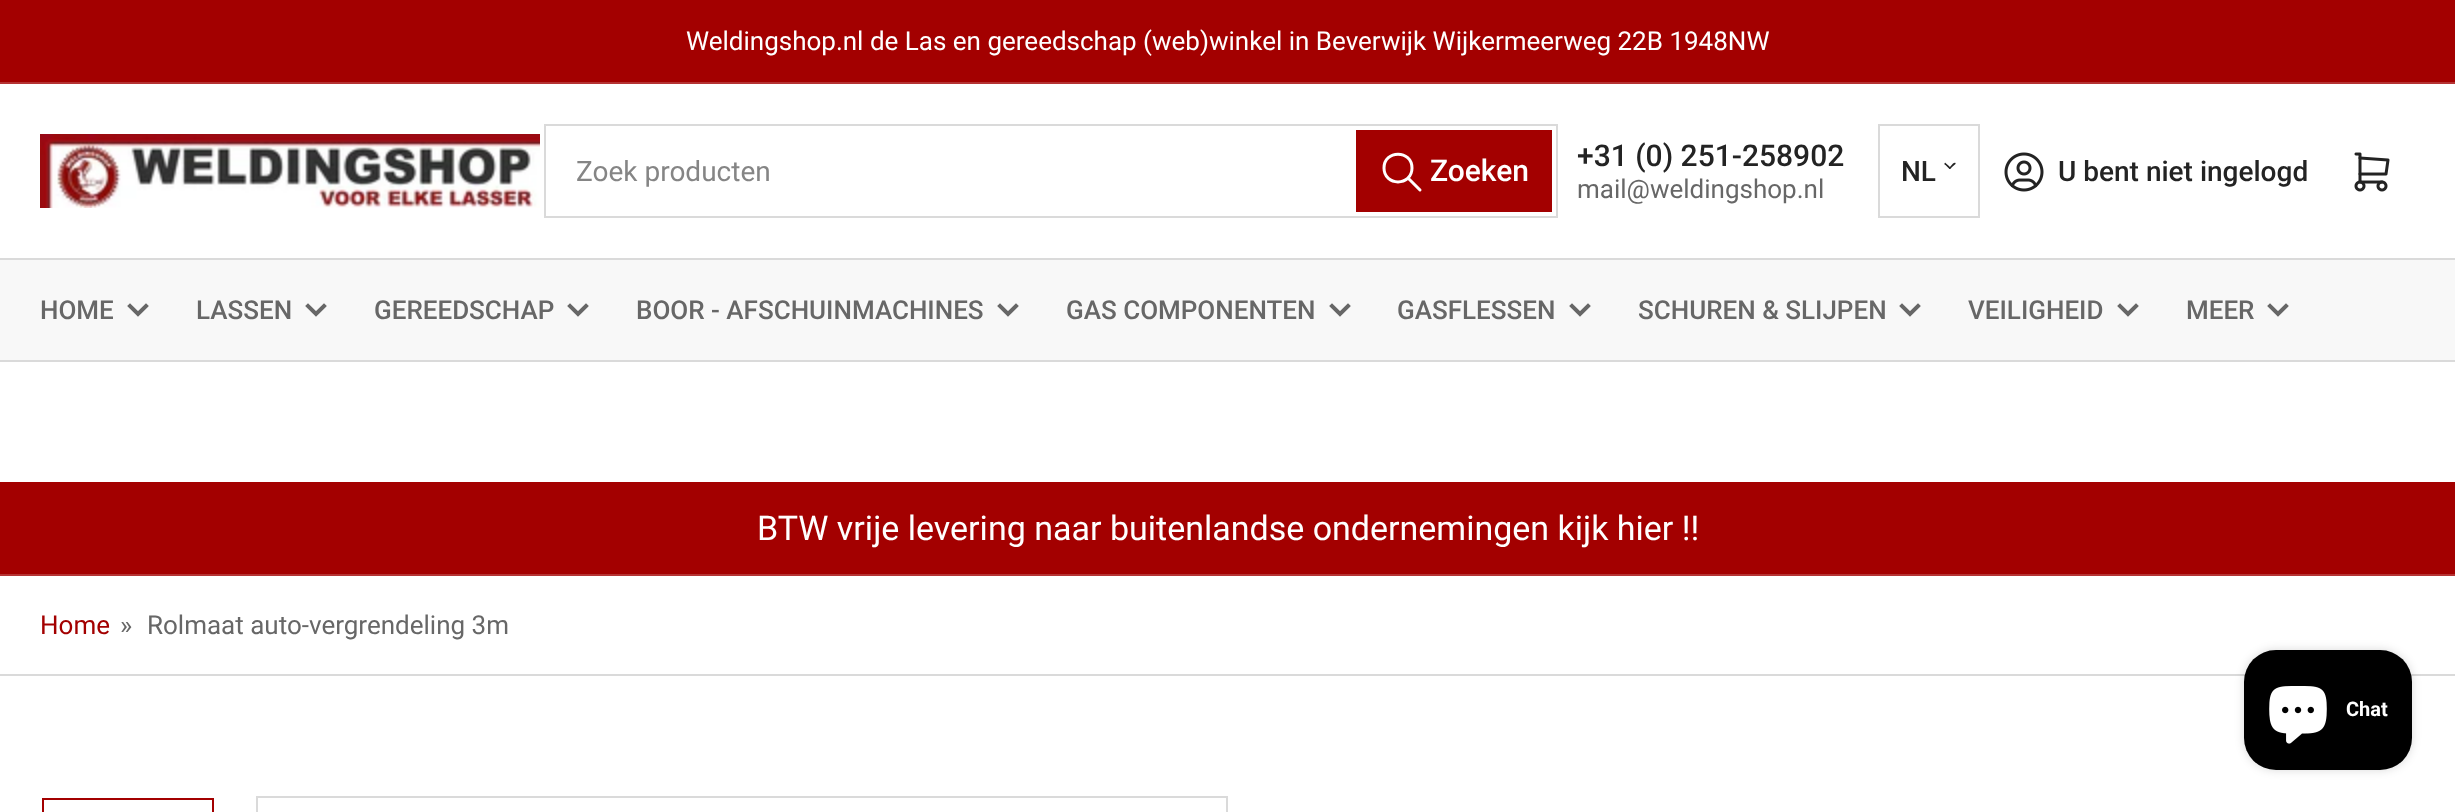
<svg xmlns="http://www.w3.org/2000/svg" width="2455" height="812">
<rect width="100%" height="100%" fill="#fff"/>
<rect width="2455" height="82" fill="#a30000"/>
<rect y="82" width="2455" height="2" fill="#b53333"/>
<text x="686" y="50" style="font-family:Roboto;font-size:26px;fill:#fff">Weldingshop.nl de Las en gereedschap (web)winkel in Beverwijk Wijkermeerweg 22B 1948NW</text>
<image x="40" y="134" width="500" height="74" href="media/1.png"/>
<rect x="545" y="125" width="1012" height="92" fill="none" stroke="#dadada" stroke-width="2"/>
<text x="576" y="181" style="font-family:Roboto;font-size:28px;fill:#858585">Zoek producten</text>
<rect x="1357" y="131" width="194" height="80" fill="none" stroke="#a30000" stroke-width="2"/>
<rect x="1358" y="132" width="192" height="78" fill="#a30000"/>
<path d="M1384 168c0 18.5 28 18.5 28 0c0-18.5-28-18.5-28 0m36 22l-12-12" fill="none" stroke="#fff" stroke-width="3" stroke-linecap="round" stroke-linejoin="round"/>
<text x="1430" y="181" style="font-family:Roboto;font-size:30px;font-weight:500;fill:#fff">Zoeken</text>
<text x="1577" y="166" style="font-family:Roboto;font-size:30px;font-weight:500;fill:#232323">+31 (0) 251-258902</text>
<text x="1577" y="198" style="font-family:Roboto;font-size:26px;fill:#676767">mail@weldingshop.nl</text>
<rect x="1879" y="125" width="100" height="92" fill="none" stroke="#dadada" stroke-width="2"/>
<text x="1901" y="181" style="font-family:Roboto;font-size:28px;font-weight:500;fill:#232323">NL</text>
<path d="M1945.5 163l4 3.5c1 1.5 1 3 0 2.5l-3.5-3.5c-.5-.5-2-1-1.5-2c0-.5 1-1 1-.5z" fill="#232323"/>
<path d="M1949.5 167.5l3.5-4c1.5-1 3-1 2.5 .5l-3.5 3c-.5 .5-1.5 2-2 2c-1-.5-1-1-.5-1.5z" fill="#232323"/>
<image x="2004" y="152" width="40" height="40" href="media/2.png"/>
<text x="2058" y="181" style="font-family:Roboto;font-size:28px;font-weight:500;fill:#232323">U bent niet ingelogd</text>
<image x="2354" y="152" width="36" height="40" href="media/3.png"/>
<rect y="260" width="2455" height="100" fill="#f8f8f8"/>
<rect y="258" width="2455" height="2" fill="#dadada"/>
<rect y="360" width="2455" height="2" fill="#dadada"/>
<text x="40" y="319" style="font-family:Roboto;font-size:26px;font-weight:500;fill:#676767">HOME</text>
<path d="M146 306l-8 8l-8-8" fill="none" stroke="#676767" stroke-width="4" stroke-linecap="square"/>
<text x="196" y="319" style="font-family:Roboto;font-size:26px;font-weight:500;fill:#676767">LASSEN</text>
<path d="M324 306l-8 8l-8-8" fill="none" stroke="#676767" stroke-width="4" stroke-linecap="square"/>
<text x="374" y="319" style="font-family:Roboto;font-size:26px;font-weight:500;fill:#676767">GEREEDSCHAP</text>
<path d="M586 306l-8 8l-8-8" fill="none" stroke="#676767" stroke-width="4" stroke-linecap="square"/>
<text x="636" y="319" style="font-family:Roboto;font-size:26px;font-weight:500;fill:#676767">BOOR - AFSCHUINMACHINES</text>
<path d="M1016 306l-8 8l-8-8" fill="none" stroke="#676767" stroke-width="4" stroke-linecap="square"/>
<text x="1066" y="319" style="font-family:Roboto;font-size:26px;font-weight:500;fill:#676767">GAS COMPONENTEN</text>
<path d="M1348 306l-8 8l-8-8" fill="none" stroke="#676767" stroke-width="4" stroke-linecap="square"/>
<text x="1397" y="319" style="font-family:Roboto;font-size:26px;font-weight:500;fill:#676767">GASFLESSEN</text>
<path d="M1588 306l-8 8l-8-8" fill="none" stroke="#676767" stroke-width="4" stroke-linecap="square"/>
<text x="1638" y="319" style="font-family:Roboto;font-size:26px;font-weight:500;fill:#676767">SCHUREN &amp; SLIJPEN</text>
<path d="M1918 306l-8 8l-8-8" fill="none" stroke="#676767" stroke-width="4" stroke-linecap="square"/>
<text x="1968" y="319" style="font-family:Roboto;font-size:26px;font-weight:500;fill:#676767">VEILIGHEID</text>
<path d="M2136 306l-8 8l-8-8" fill="none" stroke="#676767" stroke-width="4" stroke-linecap="square"/>
<text x="2186" y="319" style="font-family:Roboto;font-size:26px;font-weight:500;fill:#676767">MEER</text>
<path d="M2286 306l-8 8l-8-8" fill="none" stroke="#676767" stroke-width="4" stroke-linecap="square"/>
<rect y="482" width="2455" height="92" fill="#a30000"/>
<rect y="574" width="2455" height="2" fill="#b53333"/>
<text x="757" y="540" style="font-family:Roboto;font-size:34px;fill:#fff">BTW vrije levering naar buitenlandse ondernemingen kijk hier !!</text>
<rect y="674" width="2455" height="2" fill="#dadada"/>
<text x="40" y="634" style="font-family:Roboto;font-size:26px;fill:#a30000">Home</text>
<text x="120" y="634" style="font-family:Roboto;font-size:26px;fill:#676767">»</text>
<text x="147" y="634" style="font-family:Roboto;font-size:26px;fill:#676767">Rolmaat auto-vergrendeling 3m</text>
<rect x="43" y="799" width="170" height="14" fill="none" stroke="#a30000" stroke-width="2"/>
<rect x="257" y="797" width="970" height="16" fill="none" stroke="#dadada" stroke-width="2"/>
<rect x="2244" y="650" width="168" height="120" rx="32" fill="#00000026" filter="blur(5px)"/>
<rect x="2244" y="650" width="168" height="120" rx="32" fill="#000"/>
<image x="2269" y="686" width="58" height="58" href="media/4.png"/>
<text x="2346" y="716" style="font-family:Roboto;font-size:20px;font-weight:bold;fill:#fff">Chat</text>
</svg>
